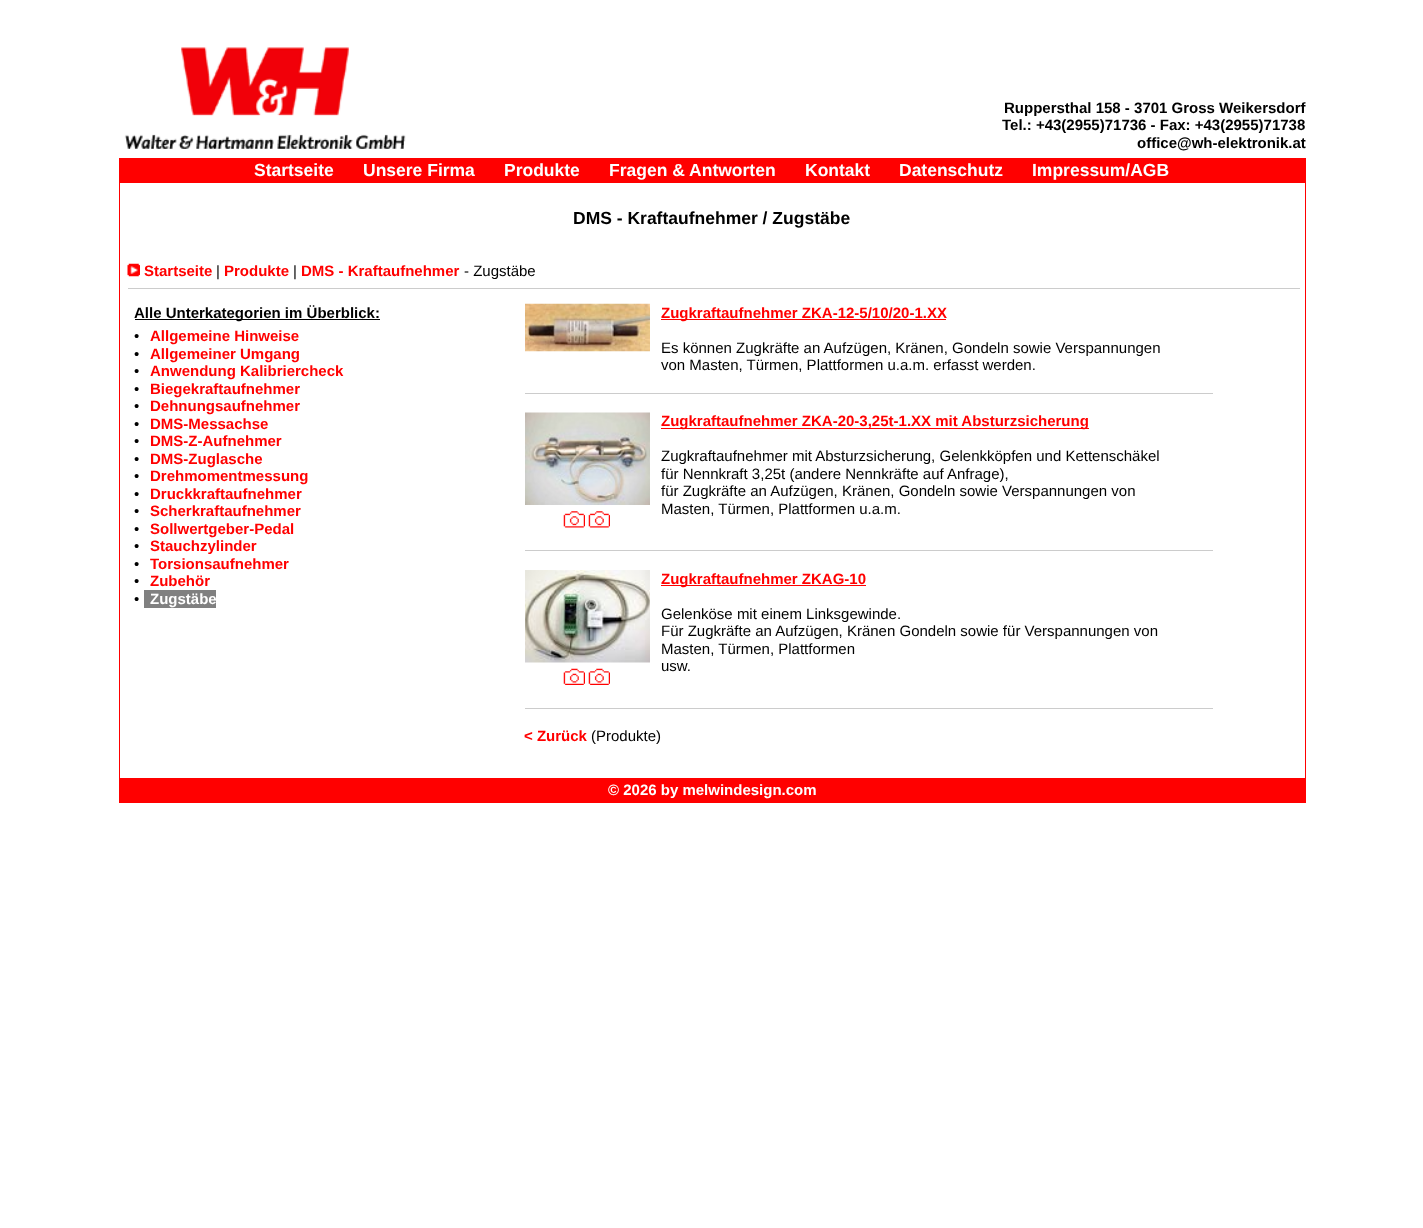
<svg xmlns="http://www.w3.org/2000/svg" width="1423" height="1228">
<rect width="100%" height="100%" fill="#fff"/>
<image x="124" y="47" width="282" height="102" href="media/1.png"/>
<text x="1004" y="113" style="font-family:Liberation Sans;font-size:15px;font-weight:bold;fill:#000">Ruppersthal 158 - 3701 Gross Weikersdorf</text>
<text x="1002" y="130" style="font-family:Liberation Sans;font-size:15px;font-weight:bold;fill:#000">Tel.: +43(2955)71736 - Fax: +43(2955)71738</text>
<text x="1137" y="148" style="font-family:Liberation Sans;font-size:15px;font-weight:bold;fill:#000">office@wh-elektronik.at</text>
<rect x="119" y="158" width="1187" height="25" fill="#f00"/>
<text x="254" y="176" style="font-family:Liberation Sans;font-size:17.5px;font-weight:bold;fill:#fff">Startseite</text>
<text x="363" y="176" style="font-family:Liberation Sans;font-size:17.5px;font-weight:bold;fill:#fff">Unsere Firma</text>
<text x="504" y="176" style="font-family:Liberation Sans;font-size:17.5px;font-weight:bold;fill:#fff">Produkte</text>
<text x="609" y="176" style="font-family:Liberation Sans;font-size:17.5px;font-weight:bold;fill:#fff">Fragen &amp; Antworten</text>
<text x="805" y="176" style="font-family:Liberation Sans;font-size:17.5px;font-weight:bold;fill:#fff">Kontakt</text>
<text x="899" y="176" style="font-family:Liberation Sans;font-size:17.5px;font-weight:bold;fill:#fff">Datenschutz</text>
<text x="1032" y="176" style="font-family:Liberation Sans;font-size:17.5px;font-weight:bold;fill:#fff">Impressum/AGB</text>
<rect x="1305" y="183" width="1" height="595" fill="#f00"/>
<rect x="119" y="183" width="1" height="595" fill="#f00"/>
<text x="573" y="224" style="font-family:Liberation Sans;font-size:17.5px;font-weight:bold;fill:#000">DMS - Kraftaufnehmer / Zugstäbe</text>
<image x="127" y="263" width="13" height="14" href="media/2.png"/>
<text x="144" y="276" style="font-family:Liberation Sans;font-size:15px;font-weight:bold;fill:#f00">Startseite</text>
<text x="216" y="276" style="font-family:Liberation Sans;font-size:15px;fill:#000">|</text>
<text x="224" y="276" style="font-family:Liberation Sans;font-size:15px;font-weight:bold;fill:#f00">Produkte</text>
<text x="293" y="276" style="font-family:Liberation Sans;font-size:15px;fill:#000">|</text>
<text x="301" y="276" style="font-family:Liberation Sans;font-size:15px;font-weight:bold;fill:#f00">DMS - Kraftaufnehmer</text>
<text x="464" y="276" style="font-family:Liberation Sans;font-size:15px;fill:#000">- Zugstäbe</text>
<rect x="128" y="288" width="1172" height="1" fill="#ccc"/>
<rect x="135" y="319" width="245" height="1" fill="#000"/>
<text x="134" y="318" style="font-family:Liberation Sans;font-size:15px;font-weight:bold;fill:#000">Alle Unterkategorien im Überblick:</text>
<text x="134" y="341" style="font-family:Liberation Sans;font-size:15px;fill:#000">•</text>
<text x="150" y="341" style="font-family:Liberation Sans;font-size:15px;font-weight:bold;fill:#f00">Allgemeine Hinweise</text>
<text x="134" y="359" style="font-family:Liberation Sans;font-size:15px;fill:#000">•</text>
<text x="150" y="359" style="font-family:Liberation Sans;font-size:15px;font-weight:bold;fill:#f00">Allgemeiner Umgang</text>
<text x="134" y="376" style="font-family:Liberation Sans;font-size:15px;fill:#000">•</text>
<text x="150" y="376" style="font-family:Liberation Sans;font-size:15px;font-weight:bold;fill:#f00">Anwendung Kalibriercheck</text>
<text x="134" y="394" style="font-family:Liberation Sans;font-size:15px;fill:#000">•</text>
<text x="150" y="394" style="font-family:Liberation Sans;font-size:15px;font-weight:bold;fill:#f00">Biegekraftaufnehmer</text>
<text x="134" y="411" style="font-family:Liberation Sans;font-size:15px;fill:#000">•</text>
<text x="150" y="411" style="font-family:Liberation Sans;font-size:15px;font-weight:bold;fill:#f00">Dehnungsaufnehmer</text>
<text x="134" y="429" style="font-family:Liberation Sans;font-size:15px;fill:#000">•</text>
<text x="150" y="429" style="font-family:Liberation Sans;font-size:15px;font-weight:bold;fill:#f00">DMS-Messachse</text>
<text x="134" y="446" style="font-family:Liberation Sans;font-size:15px;fill:#000">•</text>
<text x="150" y="446" style="font-family:Liberation Sans;font-size:15px;font-weight:bold;fill:#f00">DMS-Z-Aufnehmer</text>
<text x="134" y="464" style="font-family:Liberation Sans;font-size:15px;fill:#000">•</text>
<text x="150" y="464" style="font-family:Liberation Sans;font-size:15px;font-weight:bold;fill:#f00">DMS-Zuglasche</text>
<text x="134" y="481" style="font-family:Liberation Sans;font-size:15px;fill:#000">•</text>
<text x="150" y="481" style="font-family:Liberation Sans;font-size:15px;font-weight:bold;fill:#f00">Drehmomentmessung</text>
<text x="134" y="499" style="font-family:Liberation Sans;font-size:15px;fill:#000">•</text>
<text x="150" y="499" style="font-family:Liberation Sans;font-size:15px;font-weight:bold;fill:#f00">Druckkraftaufnehmer</text>
<text x="134" y="516" style="font-family:Liberation Sans;font-size:15px;fill:#000">•</text>
<text x="150" y="516" style="font-family:Liberation Sans;font-size:15px;font-weight:bold;fill:#f00">Scherkraftaufnehmer</text>
<text x="134" y="534" style="font-family:Liberation Sans;font-size:15px;fill:#000">•</text>
<text x="150" y="534" style="font-family:Liberation Sans;font-size:15px;font-weight:bold;fill:#f00">Sollwertgeber-Pedal</text>
<text x="134" y="551" style="font-family:Liberation Sans;font-size:15px;fill:#000">•</text>
<text x="150" y="551" style="font-family:Liberation Sans;font-size:15px;font-weight:bold;fill:#f00">Stauchzylinder</text>
<text x="134" y="569" style="font-family:Liberation Sans;font-size:15px;fill:#000">•</text>
<text x="150" y="569" style="font-family:Liberation Sans;font-size:15px;font-weight:bold;fill:#f00">Torsionsaufnehmer</text>
<text x="134" y="586" style="font-family:Liberation Sans;font-size:15px;fill:#000">•</text>
<text x="150" y="586" style="font-family:Liberation Sans;font-size:15px;font-weight:bold;fill:#f00">Zubehör</text>
<text x="134" y="604" style="font-family:Liberation Sans;font-size:15px;fill:#000">•</text>
<rect x="144" y="590" width="72" height="18" fill="#808080"/>
<text x="150" y="604" style="font-family:Liberation Sans;font-size:15px;font-weight:bold;fill:#fff">Zugstäbe</text>
<image x="525" y="303" width="125" height="49" href="media/3.png"/>
<rect x="661" y="319" width="285" height="1" fill="#f00"/>
<text x="661" y="318" style="font-family:Liberation Sans;font-size:15px;font-weight:bold;fill:#f00">Zugkraftaufnehmer ZKA-12-5/10/20-1.XX</text>
<text x="661" y="353" style="font-family:Liberation Sans;font-size:15px;fill:#000">Es können Zugkräfte an Aufzügen, Kränen, Gondeln sowie Verspannungen</text>
<text x="661" y="370" style="font-family:Liberation Sans;font-size:15px;fill:#000">von Masten, Türmen, Plattformen u.a.m. erfasst werden.</text>
<rect x="525" y="393" width="688" height="1" fill="#ccc"/>
<image x="525" y="412" width="125" height="93" href="media/4.png"/>
<image x="563" y="511" width="22" height="17" href="media/5.png"/>
<image x="588" y="511" width="22" height="17" href="media/6.png"/>
<rect x="661" y="428" width="428" height="1" fill="#f00"/>
<text x="661" y="426" style="font-family:Liberation Sans;font-size:15px;font-weight:bold;fill:#f00">Zugkraftaufnehmer ZKA-20-3,25t-1.XX mit Absturzsicherung</text>
<text x="661" y="461" style="font-family:Liberation Sans;font-size:15px;fill:#000">Zugkraftaufnehmer mit Absturzsicherung, Gelenkköpfen und Kettenschäkel</text>
<text x="661" y="479" style="font-family:Liberation Sans;font-size:15px;fill:#000">für Nennkraft 3,25t (andere Nennkräfte auf Anfrage),</text>
<text x="661" y="496" style="font-family:Liberation Sans;font-size:15px;fill:#000">für Zugkräfte an Aufzügen, Kränen, Gondeln sowie Verspannungen von</text>
<text x="661" y="514" style="font-family:Liberation Sans;font-size:15px;fill:#000">Masten, Türmen, Plattformen u.a.m.</text>
<rect x="525" y="550" width="688" height="1" fill="#ccc"/>
<image x="525" y="570" width="125" height="93" href="media/7.png"/>
<image x="563" y="668" width="22" height="17" href="media/8.png"/>
<image x="588" y="668" width="22" height="17" href="media/9.png"/>
<rect x="661" y="585" width="205" height="1" fill="#f00"/>
<text x="661" y="584" style="font-family:Liberation Sans;font-size:15px;font-weight:bold;fill:#f00">Zugkraftaufnehmer ZKAG-10</text>
<text x="661" y="619" style="font-family:Liberation Sans;font-size:15px;fill:#000">Gelenköse mit einem Linksgewinde.</text>
<text x="661" y="636" style="font-family:Liberation Sans;font-size:15px;fill:#000">Für Zugkräfte an Aufzügen, Kränen Gondeln sowie für Verspannungen von</text>
<text x="661" y="654" style="font-family:Liberation Sans;font-size:15px;fill:#000">Masten, Türmen, Plattformen</text>
<text x="661" y="671" style="font-family:Liberation Sans;font-size:15px;fill:#000">usw.</text>
<rect x="525" y="708" width="688" height="1" fill="#ccc"/>
<text x="524" y="741" style="font-family:Liberation Sans;font-size:15px;font-weight:bold;fill:#f00">&lt; Zurück</text>
<text x="591" y="741" style="font-family:Liberation Sans;font-size:15px;fill:#000">(Produkte)</text>
<rect x="119" y="778" width="1187" height="25" fill="#f00"/>
<text x="608" y="795" style="font-family:Liberation Sans;font-size:15px;font-weight:bold;fill:#fff">© 2026 by melwindesign.com</text>
</svg>
